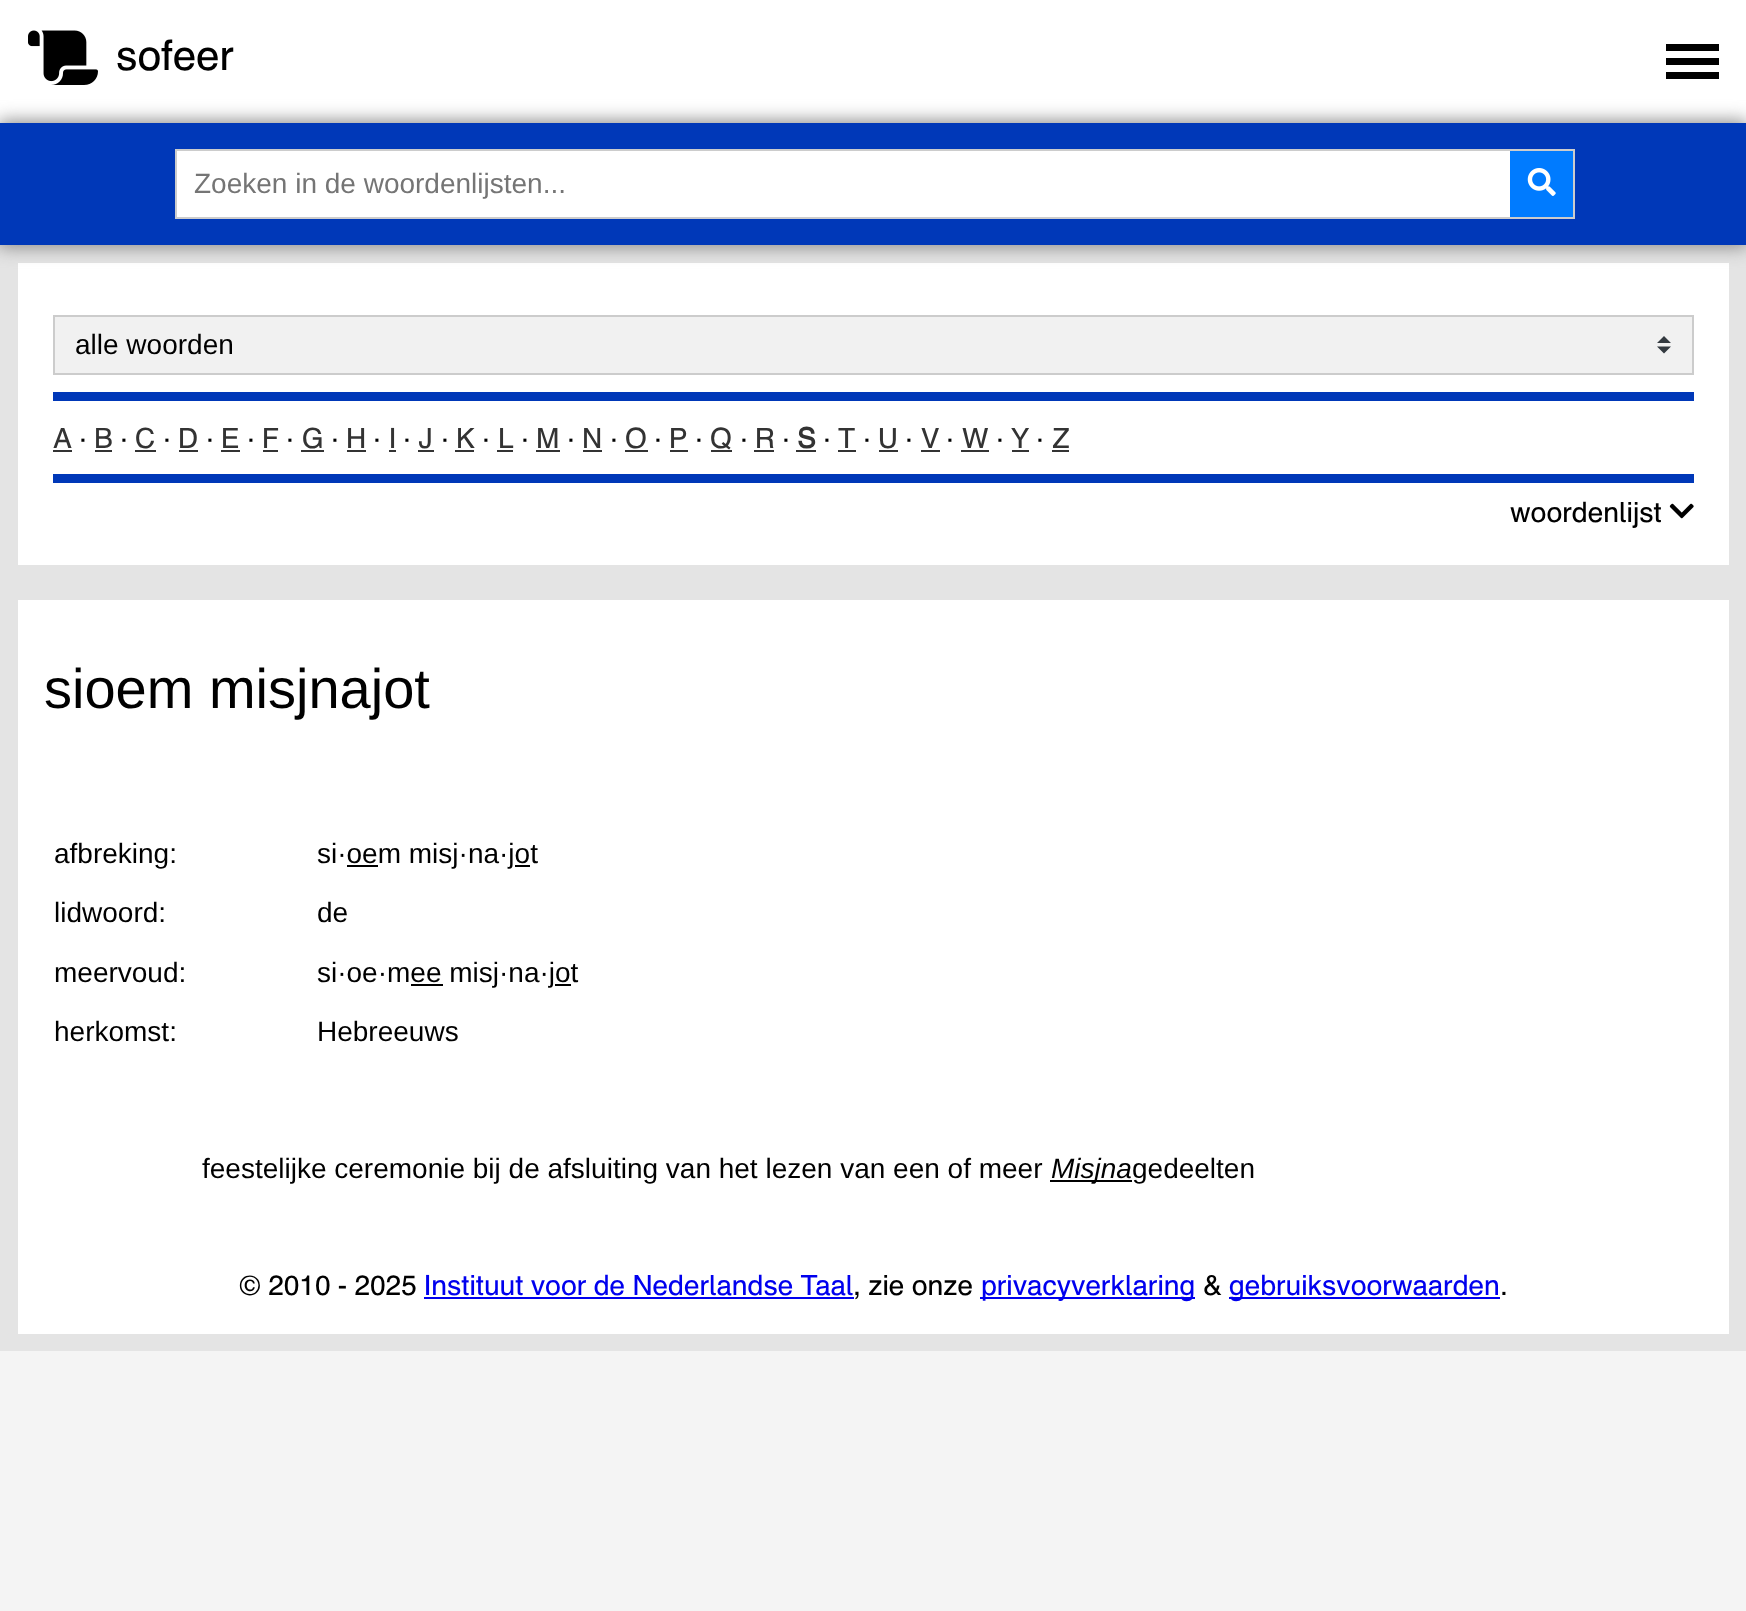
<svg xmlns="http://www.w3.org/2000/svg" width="1746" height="1611">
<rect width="100%" height="100%" fill="#f4f4f4"/>
<rect width="1746" height="123" fill="#fff"/>
<image x="28" y="30" width="70" height="55" href="media/1.png"/>
<text x="116" y="70" style="font-family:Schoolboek;font-size:42px;fill:#000">sofeer</text>
<rect x="1666" y="58" width="53" height="7" fill="#000"/>
<rect x="1666" y="44" width="53" height="7" fill="#000"/>
<rect x="1666" y="72" width="53" height="7" fill="#000"/>
<rect y="245" width="1746" height="1106" fill="#e4e4e4"/>
<rect x="18" y="263" width="1711" height="302" fill="#fff"/>
<rect x="-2" y="121" width="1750" height="126" fill="#888" filter="blur(9px)"/>
<rect y="123" width="1746" height="122" fill="#0038b8"/>
<rect x="176" y="150" width="1398" height="68" fill="none" stroke="#ccc" stroke-width="2"/>
<rect x="177" y="151" width="1333" height="66" fill="#fff"/>
<text x="194" y="193" style="font-family:Liberation Sans;font-size:28px;fill:#757575">Zoeken in de woordenlijsten...</text>
<rect x="1510" y="151" width="63" height="66" fill="#007bff"/>
<image x="1527" y="168" width="29" height="28" href="media/2.png"/>
<rect x="53" y="392" width="1641" height="9" fill="#0038b8"/>
<rect x="55" y="317" width="1637" height="56" fill="#f1f1f1"/>
<path d="M1664 336l-7 7h14zm0 17.5l-7-7h14z" fill="#343a40"/>
<rect x="54" y="316" width="1639" height="58" fill="none" stroke="#ccc" stroke-width="2"/>
<text x="75" y="354" style="font-family:Liberation Sans;font-size:28px;fill:#000">alle woorden</text>
<rect x="53" y="474" width="1641" height="9" fill="#0038b8"/>
<text x="53" y="448" style="font-family:Schoolboek;font-size:28px;fill:#333">A</text>
<rect x="53" y="450" width="19" height="2" fill="#333"/>
<text x="79" y="448" style="font-family:Schoolboek;font-size:28px;fill:#000">·</text>
<text x="94" y="448" style="font-family:Schoolboek;font-size:28px;fill:#333">B</text>
<rect x="95" y="450" width="17" height="2" fill="#333"/>
<text x="120" y="448" style="font-family:Schoolboek;font-size:28px;fill:#000">·</text>
<text x="135" y="448" style="font-family:Schoolboek;font-size:28px;fill:#333">C</text>
<rect x="135" y="450" width="21" height="2" fill="#333"/>
<text x="163" y="448" style="font-family:Schoolboek;font-size:28px;fill:#000">·</text>
<text x="178" y="448" style="font-family:Schoolboek;font-size:28px;fill:#333">D</text>
<rect x="179" y="450" width="19" height="2" fill="#333"/>
<text x="206" y="448" style="font-family:Schoolboek;font-size:28px;fill:#000">·</text>
<text x="221" y="448" style="font-family:Schoolboek;font-size:28px;fill:#333">E</text>
<rect x="221" y="450" width="19" height="2" fill="#333"/>
<text x="247" y="448" style="font-family:Schoolboek;font-size:28px;fill:#000">·</text>
<text x="262" y="448" style="font-family:Schoolboek;font-size:28px;fill:#333">F</text>
<rect x="263" y="450" width="15" height="2" fill="#333"/>
<text x="286" y="448" style="font-family:Schoolboek;font-size:28px;fill:#000">·</text>
<text x="302" y="448" style="font-family:Schoolboek;font-size:28px;fill:#333">G</text>
<rect x="301" y="450" width="23" height="2" fill="#333"/>
<text x="331" y="448" style="font-family:Schoolboek;font-size:28px;fill:#000">·</text>
<text x="346" y="448" style="font-family:Schoolboek;font-size:28px;fill:#333">H</text>
<rect x="347" y="450" width="19" height="2" fill="#333"/>
<text x="373" y="448" style="font-family:Schoolboek;font-size:28px;fill:#000">·</text>
<text x="389" y="448" style="font-family:Schoolboek;font-size:28px;fill:#333">I</text>
<rect x="389" y="450" width="7" height="2" fill="#333"/>
<text x="403" y="448" style="font-family:Schoolboek;font-size:28px;fill:#000">·</text>
<text x="418" y="448" style="font-family:Schoolboek;font-size:28px;fill:#333">J</text>
<rect x="418" y="450" width="16" height="2" fill="#333"/>
<text x="441" y="448" style="font-family:Schoolboek;font-size:28px;fill:#000">·</text>
<text x="456" y="448" style="font-family:Schoolboek;font-size:28px;fill:#333">K</text>
<rect x="455" y="450" width="19" height="2" fill="#333"/>
<text x="482" y="448" style="font-family:Schoolboek;font-size:28px;fill:#000">·</text>
<text x="498" y="448" style="font-family:Schoolboek;font-size:28px;fill:#333">L</text>
<rect x="497" y="450" width="16" height="2" fill="#333"/>
<text x="521" y="448" style="font-family:Schoolboek;font-size:28px;fill:#000">·</text>
<text x="536" y="448" style="font-family:Schoolboek;font-size:28px;fill:#333">M</text>
<rect x="536" y="450" width="24" height="2" fill="#333"/>
<text x="567" y="448" style="font-family:Schoolboek;font-size:28px;fill:#000">·</text>
<text x="582" y="448" style="font-family:Schoolboek;font-size:28px;fill:#333">N</text>
<rect x="583" y="450" width="19" height="2" fill="#333"/>
<text x="610" y="448" style="font-family:Schoolboek;font-size:28px;fill:#000">·</text>
<text x="625" y="448" style="font-family:Schoolboek;font-size:28px;fill:#333">O</text>
<rect x="625" y="450" width="23" height="2" fill="#333"/>
<text x="654" y="448" style="font-family:Schoolboek;font-size:28px;fill:#000">·</text>
<text x="669" y="448" style="font-family:Schoolboek;font-size:28px;fill:#333">P</text>
<rect x="670" y="450" width="18" height="2" fill="#333"/>
<text x="695" y="448" style="font-family:Schoolboek;font-size:28px;fill:#000">·</text>
<text x="710" y="448" style="font-family:Schoolboek;font-size:28px;fill:#333">Q</text>
<rect x="711" y="450" width="21" height="2" fill="#333"/>
<text x="740" y="448" style="font-family:Schoolboek;font-size:28px;fill:#000">·</text>
<text x="755" y="448" style="font-family:Schoolboek;font-size:28px;fill:#333">R</text>
<rect x="754" y="450" width="20" height="2" fill="#333"/>
<text x="782" y="448" style="font-family:Schoolboek;font-size:28px;fill:#000">·</text>
<text x="797" y="448" style="font-family:Schoolboek;font-size:28px;font-weight:bold;fill:#333">S</text>
<rect x="796" y="450" width="20" height="2" fill="#333"/>
<text x="823" y="448" style="font-family:Schoolboek;font-size:28px;fill:#000">·</text>
<text x="838" y="448" style="font-family:Schoolboek;font-size:28px;fill:#333">T</text>
<rect x="838" y="450" width="18" height="2" fill="#333"/>
<text x="863" y="448" style="font-family:Schoolboek;font-size:28px;fill:#000">·</text>
<text x="878" y="448" style="font-family:Schoolboek;font-size:28px;fill:#333">U</text>
<rect x="879" y="450" width="19" height="2" fill="#333"/>
<text x="905" y="448" style="font-family:Schoolboek;font-size:28px;fill:#000">·</text>
<text x="921" y="448" style="font-family:Schoolboek;font-size:28px;fill:#333">V</text>
<rect x="921" y="450" width="19" height="2" fill="#333"/>
<text x="946" y="448" style="font-family:Schoolboek;font-size:28px;fill:#000">·</text>
<text x="962" y="448" style="font-family:Schoolboek;font-size:28px;fill:#333">W</text>
<rect x="961" y="450" width="28" height="2" fill="#333"/>
<text x="996" y="448" style="font-family:Schoolboek;font-size:28px;fill:#000">·</text>
<text x="1011" y="448" style="font-family:Schoolboek;font-size:28px;fill:#333">Y</text>
<rect x="1012" y="450" width="17" height="2" fill="#333"/>
<text x="1036" y="448" style="font-family:Schoolboek;font-size:28px;fill:#000">·</text>
<text x="1052" y="448" style="font-family:Schoolboek;font-size:28px;fill:#333">Z</text>
<rect x="1052" y="450" width="17" height="2" fill="#333"/>
<text x="1510" y="522" style="font-family:Schoolboek;font-size:28px;fill:#000">woordenlijst</text>
<image x="1669" y="503" width="25" height="16" href="media/3.png"/>
<rect x="18" y="600" width="1711" height="734" fill="#fff"/>
<text x="44" y="708" style="font-family:Liberation Sans;font-size:56px;fill:#000">sioem misjnajot</text>
<text x="54" y="863" style="font-family:Liberation Sans;font-size:28px;fill:#000">afbreking:</text>
<text x="317" y="863" style="font-family:Liberation Sans;font-size:28px;fill:#000">si·oem misj·na·jot</text>
<rect x="347" y="865" width="31" height="2" fill="#000"/>
<rect x="515" y="865" width="15" height="2" fill="#000"/>
<text x="54" y="922" style="font-family:Liberation Sans;font-size:28px;fill:#000">lidwoord:</text>
<text x="317" y="922" style="font-family:Liberation Sans;font-size:28px;fill:#000">de</text>
<text x="54" y="982" style="font-family:Liberation Sans;font-size:28px;fill:#000">meervoud:</text>
<text x="317" y="982" style="font-family:Liberation Sans;font-size:28px;fill:#000">si·oe·mee misj·na·jot</text>
<rect x="411" y="984" width="32" height="2" fill="#000"/>
<rect x="555" y="984" width="16" height="2" fill="#000"/>
<text x="54" y="1041" style="font-family:Liberation Sans;font-size:28px;fill:#000">herkomst:</text>
<text x="317" y="1041" style="font-family:Liberation Sans;font-size:28px;fill:#000">Hebreeuws</text>
<text x="202" y="1178" style="font-family:Liberation Sans;font-size:28px;fill:#000">feestelijke ceremonie bij de afsluiting van het lezen van een of meer</text>
<rect x="1050" y="1180" width="82" height="2" fill="#000"/>
<text x="1051" y="1178" style="font-family:Liberation Sans;font-size:28px;font-style:italic;fill:#000">Misjna</text>
<text x="1132" y="1178" style="font-family:Liberation Sans;font-size:28px;fill:#000">gedeelten</text>
<text x="239" y="1295" style="font-family:Schoolboek;font-size:28px;fill:#000">© 2010 - 2025</text>
<text x="424" y="1295" style="font-family:Schoolboek;font-size:28px;fill:#00e">Instituut voor de Nederlandse Taal</text>
<rect x="424" y="1297" width="430" height="2" fill="#00e"/>
<text x="853" y="1295" style="font-family:Schoolboek;font-size:28px;fill:#000">, zie onze</text>
<rect x="980" y="1297" width="215" height="2" fill="#00e"/>
<text x="981" y="1295" style="font-family:Schoolboek;font-size:28px;fill:#00e">privacyverklaring</text>
<text x="1203" y="1295" style="font-family:Schoolboek;font-size:28px;fill:#000">&amp;</text>
<rect x="1229" y="1297" width="271" height="2" fill="#00e"/>
<text x="1229" y="1295" style="font-family:Schoolboek;font-size:28px;fill:#00e">gebruiksvoorwaarden</text>
<text x="1500" y="1295" style="font-family:Schoolboek;font-size:28px;fill:#000">.</text>
</svg>
